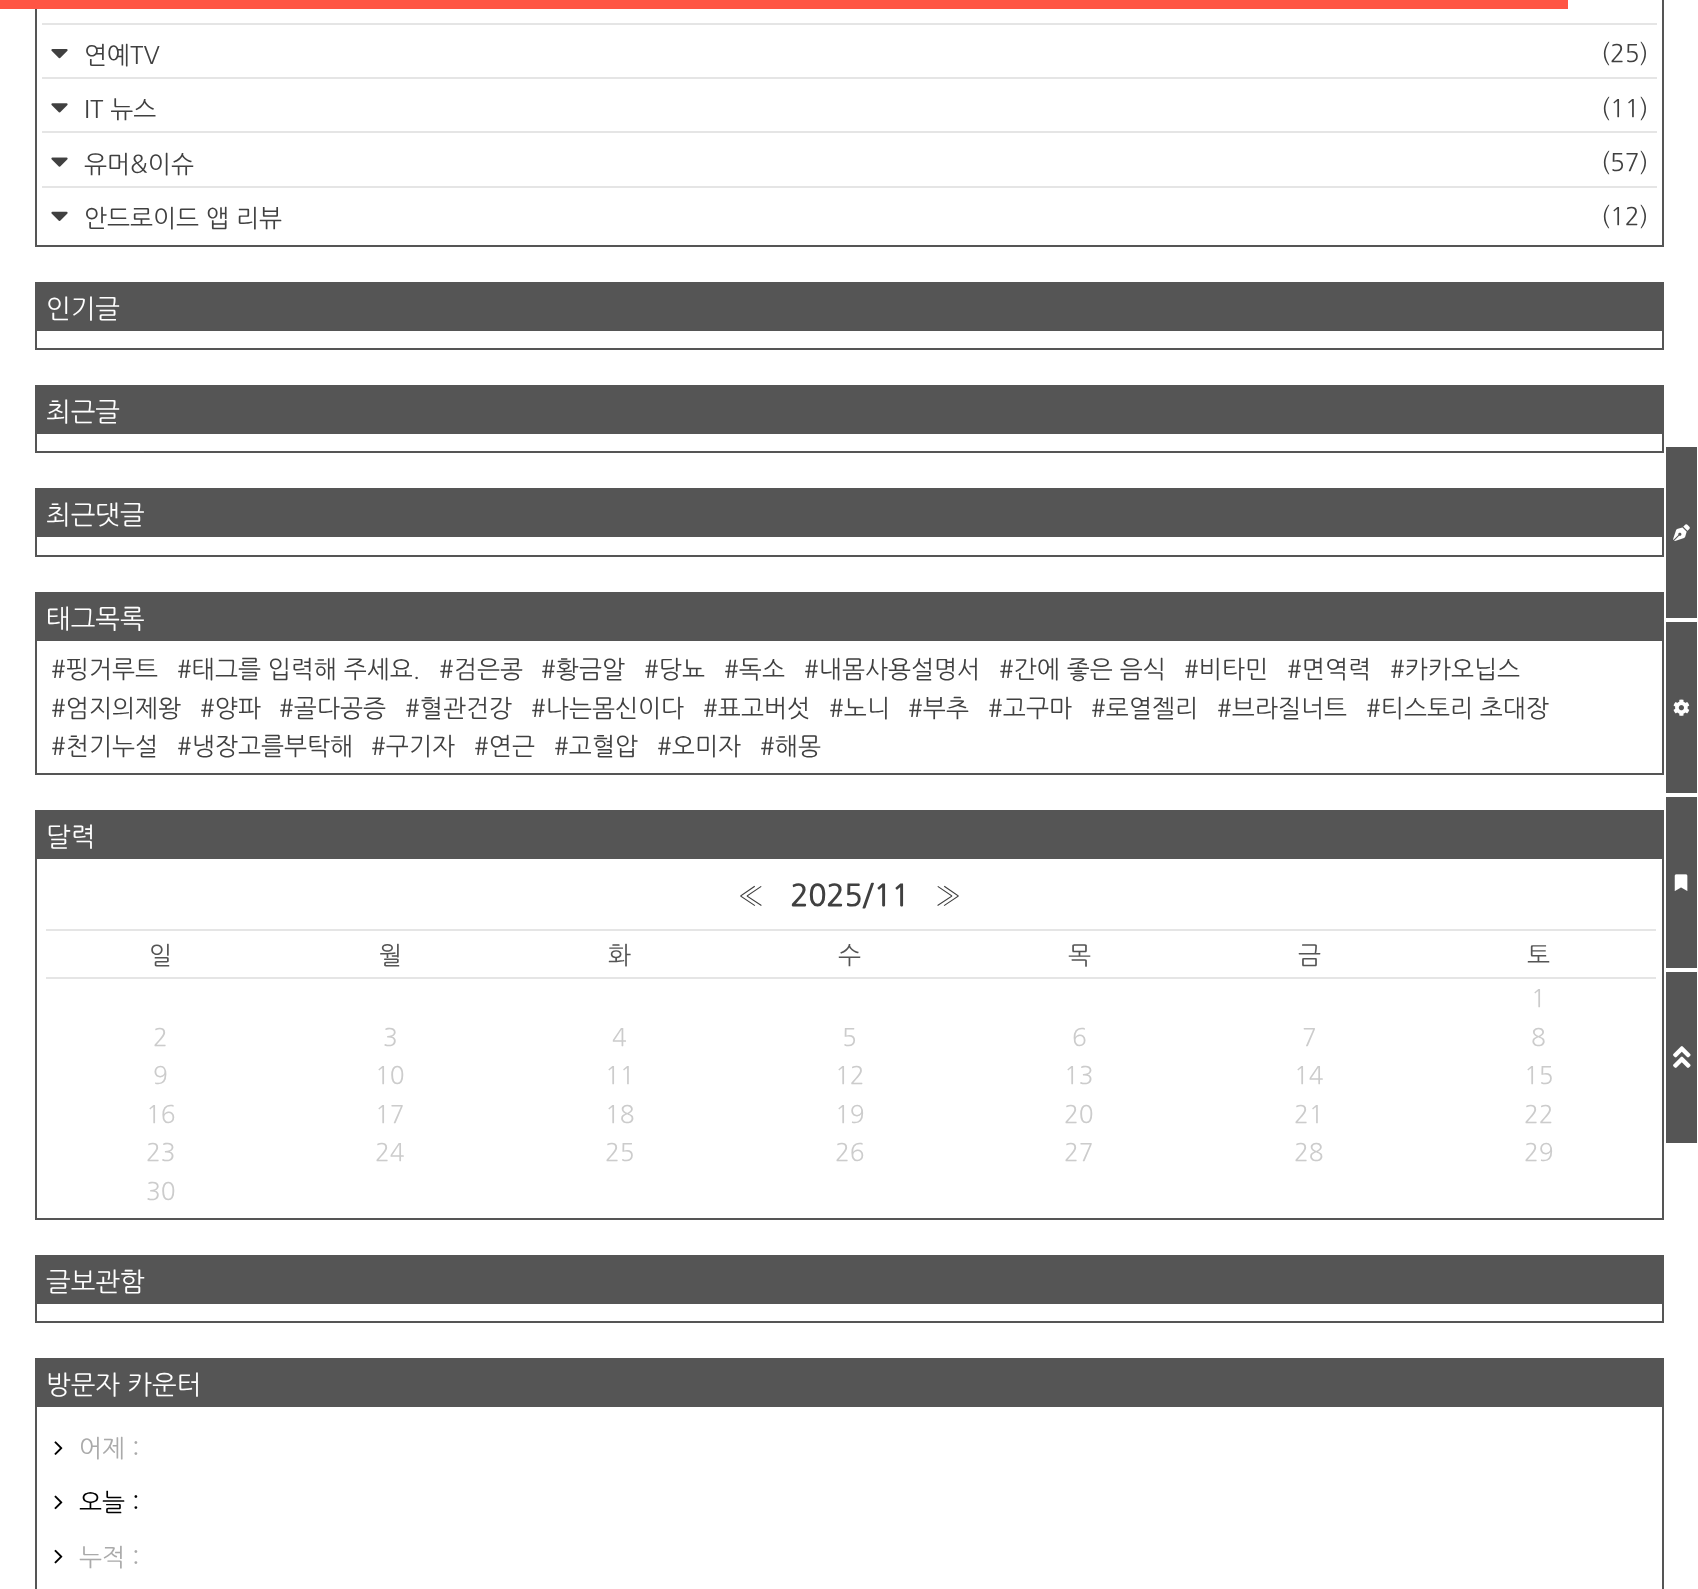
<svg xmlns="http://www.w3.org/2000/svg" width="1698" height="1589">
<rect width="100%" height="100%" fill="#fff"/>
<rect x="36" y="-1" width="1627" height="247" fill="none" stroke="#555" stroke-width="2"/>
<rect width="1568" height="9" fill="#f54"/>
<rect x="42" y="23" width="1615" height="2" fill="#e5e5e5"/>
<image x="51" y="49" width="17" height="10" href="media/1.png"/>
<text x="84" y="63" style="font-family:NanumGothic;font-size:24.5px;fill:#404040">연예TV</text>
<text x="1601" y="61" style="font-family:NanumGothic;font-size:24.5px;fill:#404040">(25)</text>
<rect x="42" y="77" width="1615" height="2" fill="#e5e5e5"/>
<image x="51" y="103" width="17" height="10" href="media/2.png"/>
<text x="84" y="117" style="font-family:NanumGothic;font-size:24.5px;fill:#404040">IT 뉴스</text>
<text x="1601" y="116" style="font-family:NanumGothic;font-size:24.5px;fill:#404040">(11)</text>
<rect x="42" y="131" width="1615" height="2" fill="#e5e5e5"/>
<image x="51" y="157" width="17" height="10" href="media/3.png"/>
<text x="84" y="172" style="font-family:NanumGothic;font-size:24.5px;fill:#404040">유머&amp;이슈</text>
<text x="1601" y="170" style="font-family:NanumGothic;font-size:24.5px;fill:#404040">(57)</text>
<rect x="42" y="186" width="1615" height="2" fill="#e5e5e5"/>
<image x="51" y="211" width="17" height="10" href="media/4.png"/>
<text x="84" y="226" style="font-family:NanumGothic;font-size:24.5px;fill:#404040">안드로이드 앱 리뷰</text>
<text x="1601" y="224" style="font-family:NanumGothic;font-size:24.5px;fill:#404040">(12)</text>
<rect x="36" y="283" width="1627" height="66" fill="none" stroke="#555" stroke-width="2"/>
<rect x="37" y="284" width="1625" height="47" fill="#555"/>
<text x="46" y="317" style="font-family:NanumGothic;font-size:26.25px;fill:#fff">인기글</text>
<rect x="36" y="386" width="1627" height="66" fill="none" stroke="#555" stroke-width="2"/>
<rect x="37" y="387" width="1625" height="47" fill="#555"/>
<text x="46" y="420" style="font-family:NanumGothic;font-size:26.25px;fill:#fff">최근글</text>
<rect x="36" y="489" width="1627" height="67" fill="none" stroke="#555" stroke-width="2"/>
<rect x="37" y="490" width="1625" height="47" fill="#555"/>
<text x="46" y="523" style="font-family:NanumGothic;font-size:26.25px;fill:#fff">최근댓글</text>
<rect x="36" y="593" width="1627" height="181" fill="none" stroke="#555" stroke-width="2"/>
<rect x="37" y="594" width="1625" height="47" fill="#555"/>
<text x="46" y="627" style="font-family:NanumGothic;font-size:26.25px;fill:#fff">태그목록</text>
<text x="51" y="677" style="font-family:NanumGothic;font-size:24.5px;fill:#404040">#핑거루트</text>
<text x="177" y="677" style="font-family:NanumGothic;font-size:24.5px;fill:#404040">#태그를 입력해 주세요.</text>
<text x="439" y="677" style="font-family:NanumGothic;font-size:24.5px;fill:#404040">#검은콩</text>
<text x="541" y="677" style="font-family:NanumGothic;font-size:24.5px;fill:#404040">#황금알</text>
<text x="644" y="677" style="font-family:NanumGothic;font-size:24.5px;fill:#404040">#당뇨</text>
<text x="724" y="677" style="font-family:NanumGothic;font-size:24.5px;fill:#404040">#독소</text>
<text x="804" y="677" style="font-family:NanumGothic;font-size:24.5px;fill:#404040">#내몸사용설명서</text>
<text x="999" y="677" style="font-family:NanumGothic;font-size:24.5px;fill:#404040">#간에 좋은 음식</text>
<text x="1184" y="677" style="font-family:NanumGothic;font-size:24.5px;fill:#404040">#비타민</text>
<text x="1287" y="677" style="font-family:NanumGothic;font-size:24.5px;fill:#404040">#면역력</text>
<text x="1390" y="677" style="font-family:NanumGothic;font-size:24.5px;fill:#404040">#카카오닙스</text>
<text x="51" y="716" style="font-family:NanumGothic;font-size:24.5px;fill:#404040">#엄지의제왕</text>
<text x="200" y="716" style="font-family:NanumGothic;font-size:24.5px;fill:#404040">#양파</text>
<text x="279" y="716" style="font-family:NanumGothic;font-size:24.5px;fill:#404040">#골다공증</text>
<text x="405" y="716" style="font-family:NanumGothic;font-size:24.5px;fill:#404040">#혈관건강</text>
<text x="531" y="716" style="font-family:NanumGothic;font-size:24.5px;fill:#404040">#나는몸신이다</text>
<text x="703" y="716" style="font-family:NanumGothic;font-size:24.5px;fill:#404040">#표고버섯</text>
<text x="829" y="716" style="font-family:NanumGothic;font-size:24.5px;fill:#404040">#노니</text>
<text x="908" y="716" style="font-family:NanumGothic;font-size:24.5px;fill:#404040">#부추</text>
<text x="988" y="716" style="font-family:NanumGothic;font-size:24.5px;fill:#404040">#고구마</text>
<text x="1091" y="716" style="font-family:NanumGothic;font-size:24.5px;fill:#404040">#로열젤리</text>
<text x="1217" y="716" style="font-family:NanumGothic;font-size:24.5px;fill:#404040">#브라질너트</text>
<text x="1366" y="716" style="font-family:NanumGothic;font-size:24.5px;fill:#404040">#티스토리 초대장</text>
<text x="51" y="754" style="font-family:NanumGothic;font-size:24.5px;fill:#404040">#천기누설</text>
<text x="177" y="754" style="font-family:NanumGothic;font-size:24.5px;fill:#404040">#냉장고를부탁해</text>
<text x="371" y="754" style="font-family:NanumGothic;font-size:24.5px;fill:#404040">#구기자</text>
<text x="474" y="754" style="font-family:NanumGothic;font-size:24.5px;fill:#404040">#연근</text>
<text x="554" y="754" style="font-family:NanumGothic;font-size:24.5px;fill:#404040">#고혈압</text>
<text x="657" y="754" style="font-family:NanumGothic;font-size:24.5px;fill:#404040">#오미자</text>
<text x="760" y="754" style="font-family:NanumGothic;font-size:24.5px;fill:#404040">#해몽</text>
<rect x="36" y="811" width="1627" height="408" fill="none" stroke="#555" stroke-width="2"/>
<rect x="37" y="812" width="1625" height="47" fill="#555"/>
<text x="46" y="845" style="font-family:NanumGothic;font-size:26.25px;fill:#fff">달력</text>
<text x="737" y="905" style="font-family:NanumGothic;font-size:29.75px;fill:#404040">«</text>
<text x="790" y="905" style="font-family:NanumGothic;font-size:29.75px;font-weight:bold;fill:#404040">2025/11</text>
<text x="934" y="905" style="font-family:NanumGothic;font-size:29.75px;fill:#404040">»</text>
<text x="149" y="963" style="font-family:NanumGothic;font-size:24.5px;fill:#555">일</text>
<text x="379" y="963" style="font-family:NanumGothic;font-size:24.5px;fill:#555">월</text>
<text x="608" y="963" style="font-family:NanumGothic;font-size:24.5px;fill:#555">화</text>
<text x="838" y="963" style="font-family:NanumGothic;font-size:24.5px;fill:#555">수</text>
<text x="1068" y="963" style="font-family:NanumGothic;font-size:24.5px;fill:#555">목</text>
<text x="1298" y="963" style="font-family:NanumGothic;font-size:24.5px;fill:#555">금</text>
<rect x="46" y="929" width="1610" height="2" fill="#e5e5e5"/>
<rect x="46" y="977" width="1610" height="2" fill="#e5e5e5"/>
<text x="1527" y="963" style="font-family:NanumGothic;font-size:24.5px;fill:#555">토</text>
<text x="1531" y="1006" style="font-family:NanumGothic;font-size:24.5px;fill:#ccc">1</text>
<text x="153" y="1045" style="font-family:NanumGothic;font-size:24.5px;fill:#ccc">2</text>
<text x="383" y="1045" style="font-family:NanumGothic;font-size:24.5px;fill:#ccc">3</text>
<text x="612" y="1045" style="font-family:NanumGothic;font-size:24.5px;fill:#ccc">4</text>
<text x="842" y="1045" style="font-family:NanumGothic;font-size:24.5px;fill:#ccc">5</text>
<text x="1072" y="1045" style="font-family:NanumGothic;font-size:24.5px;fill:#ccc">6</text>
<text x="1302" y="1045" style="font-family:NanumGothic;font-size:24.5px;fill:#ccc">7</text>
<text x="1531" y="1045" style="font-family:NanumGothic;font-size:24.5px;fill:#ccc">8</text>
<text x="153" y="1083" style="font-family:NanumGothic;font-size:24.5px;fill:#ccc">9</text>
<text x="375" y="1083" style="font-family:NanumGothic;font-size:24.5px;fill:#ccc">10</text>
<text x="605" y="1083" style="font-family:NanumGothic;font-size:24.5px;fill:#ccc">11</text>
<text x="835" y="1083" style="font-family:NanumGothic;font-size:24.5px;fill:#ccc">12</text>
<text x="1064" y="1083" style="font-family:NanumGothic;font-size:24.5px;fill:#ccc">13</text>
<text x="1294" y="1083" style="font-family:NanumGothic;font-size:24.5px;fill:#ccc">14</text>
<text x="1524" y="1083" style="font-family:NanumGothic;font-size:24.5px;fill:#ccc">15</text>
<text x="146" y="1122" style="font-family:NanumGothic;font-size:24.5px;fill:#ccc">16</text>
<text x="375" y="1122" style="font-family:NanumGothic;font-size:24.5px;fill:#ccc">17</text>
<text x="605" y="1122" style="font-family:NanumGothic;font-size:24.5px;fill:#ccc">18</text>
<text x="835" y="1122" style="font-family:NanumGothic;font-size:24.5px;fill:#ccc">19</text>
<text x="1064" y="1122" style="font-family:NanumGothic;font-size:24.5px;fill:#ccc">20</text>
<text x="1294" y="1122" style="font-family:NanumGothic;font-size:24.5px;fill:#ccc">21</text>
<text x="1524" y="1122" style="font-family:NanumGothic;font-size:24.5px;fill:#ccc">22</text>
<text x="146" y="1160" style="font-family:NanumGothic;font-size:24.5px;fill:#ccc">23</text>
<text x="375" y="1160" style="font-family:NanumGothic;font-size:24.5px;fill:#ccc">24</text>
<text x="605" y="1160" style="font-family:NanumGothic;font-size:24.5px;fill:#ccc">25</text>
<text x="835" y="1160" style="font-family:NanumGothic;font-size:24.5px;fill:#ccc">26</text>
<text x="1064" y="1160" style="font-family:NanumGothic;font-size:24.5px;fill:#ccc">27</text>
<text x="1294" y="1160" style="font-family:NanumGothic;font-size:24.5px;fill:#ccc">28</text>
<text x="1524" y="1160" style="font-family:NanumGothic;font-size:24.5px;fill:#ccc">29</text>
<text x="146" y="1199" style="font-family:NanumGothic;font-size:24.5px;fill:#ccc">30</text>
<rect x="36" y="1256" width="1627" height="66" fill="none" stroke="#555" stroke-width="2"/>
<rect x="37" y="1257" width="1625" height="47" fill="#555"/>
<text x="46" y="1290" style="font-family:NanumGothic;font-size:26.25px;fill:#fff">글보관함</text>
<rect x="36" y="1359" width="1627" height="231" fill="none" stroke="#555" stroke-width="2"/>
<rect x="37" y="1360" width="1625" height="47" fill="#555"/>
<text x="46" y="1393" style="font-family:NanumGothic;font-size:26.25px;fill:#fff">방문자 카운터</text>
<image x="54" y="1441" width="9" height="14" href="media/5.png"/>
<text x="79" y="1456" style="font-family:NanumGothic;font-size:24.5px;fill:#aaa">어제 :</text>
<image x="54" y="1495" width="9" height="15" href="media/6.png"/>
<text x="79" y="1510" style="font-family:NanumGothic;font-size:24.5px;fill:#000">오늘 :</text>
<image x="54" y="1549" width="9" height="15" href="media/7.png"/>
<text x="79" y="1565" style="font-family:NanumGothic;font-size:24.5px;fill:#aaa">누적 :</text>
<rect x="1666" y="447" width="31" height="171" fill="#555"/>
<image x="1673" y="524" width="17" height="17" href="media/8.png"/>
<rect x="1666" y="622" width="31" height="171" fill="#555"/>
<image x="1673" y="699" width="17" height="17" href="media/9.png"/>
<rect x="1666" y="797" width="31" height="171" fill="#555"/>
<image x="1674" y="874" width="14" height="17" href="media/10.png"/>
<rect x="1666" y="972" width="31" height="171" fill="#555"/>
<image x="1673" y="1046" width="18" height="22" href="media/11.png"/>
</svg>
